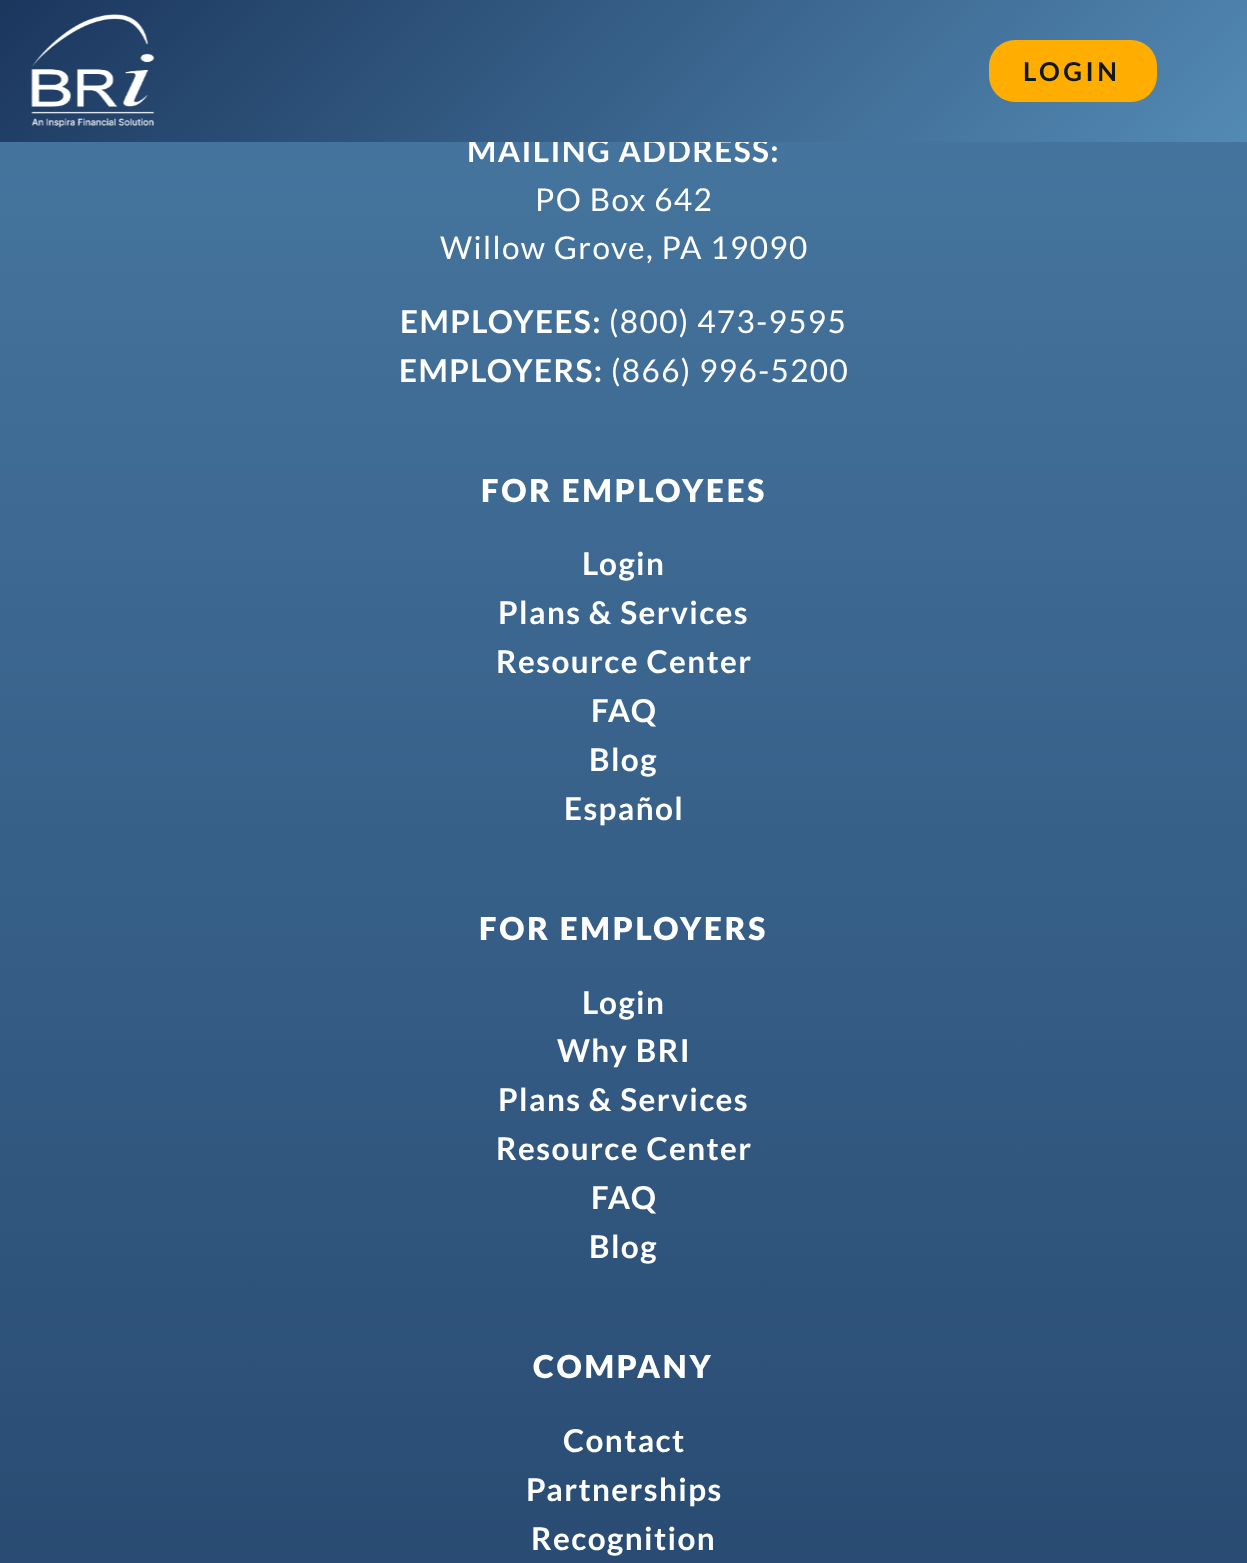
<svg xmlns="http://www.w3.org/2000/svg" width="1247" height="1563">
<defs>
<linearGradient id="g1" gradientUnits="userSpaceOnUse" x1="624" y1="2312" x2="624" y2="-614"><stop offset="0" stop-color="#1b365d"/><stop offset="1" stop-color="#538ab4"/></linearGradient>
<linearGradient id="g2" gradientUnits="userSpaceOnUse" x1="277" y1="-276" x2="971" y2="418"><stop offset="0" stop-color="#1b365d"/><stop offset="1" stop-color="#538ab4"/></linearGradient>
</defs>
<rect width="100%" height="100%" fill="#fff"/>
<rect y="142" width="1247" height="1421" fill="url(#g1)"/>
<text x="467" y="162" style="font-family:Lato;font-size:31.5px;font-weight:bold;letter-spacing:1.4px;fill:#fff">MAILING ADDRESS:</text>
<rect width="1247" height="142" fill="url(#g2)"/>
<image x="31" y="14" width="124" height="114" href="media/1.png"/>
<rect x="989" y="40" width="168" height="62" rx="26" fill="#ffad01"/>
<text x="1023" y="81" style="font-family:Lato;font-size:26px;font-weight:bold;letter-spacing:3.5px;fill:#101820">LOGIN</text>
<text x="535" y="211" style="font-family:Lato;font-size:31.5px;letter-spacing:1.4px;fill:#fff">PO Box 642</text>
<text x="440" y="259" style="font-family:Lato;font-size:31.5px;letter-spacing:1.4px;fill:#fff">Willow Grove, PA 19090</text>
<text x="400" y="333" style="font-family:Lato;font-size:31.5px;font-weight:bold;letter-spacing:1.4px;fill:#fff">EMPLOYEES:</text>
<text x="609" y="333" style="font-family:Lato;font-size:31.5px;letter-spacing:1.4px;fill:#fff">(800) 473-9595</text>
<text x="399" y="382" style="font-family:Lato;font-size:31.5px;font-weight:bold;letter-spacing:1.4px;fill:#fff">EMPLOYERS:</text>
<text x="611" y="382" style="font-family:Lato;font-size:31.5px;letter-spacing:1.4px;fill:#fff">(866) 996-5200</text>
<text x="481" y="502" style="font-family:Lato;font-size:31.5px;font-weight:900;letter-spacing:2.75px;fill:#fff">FOR EMPLOYEES</text>
<text x="582" y="575" style="font-family:Lato;font-size:31.5px;font-weight:bold;letter-spacing:1.4px;fill:#fff">Login</text>
<text x="498" y="624" style="font-family:Lato;font-size:31.5px;font-weight:bold;letter-spacing:1.4px;fill:#fff">Plans &amp; Services</text>
<text x="496" y="673" style="font-family:Lato;font-size:31.5px;font-weight:bold;letter-spacing:1.4px;fill:#fff">Resource Center</text>
<text x="591" y="722" style="font-family:Lato;font-size:31.5px;font-weight:bold;letter-spacing:1.4px;fill:#fff">FAQ</text>
<text x="589" y="771" style="font-family:Lato;font-size:31.5px;font-weight:bold;letter-spacing:1.4px;fill:#fff">Blog</text>
<text x="564" y="820" style="font-family:Lato;font-size:31.5px;font-weight:bold;letter-spacing:1.4px;fill:#fff">Español</text>
<text x="479" y="940" style="font-family:Lato;font-size:31.5px;font-weight:900;letter-spacing:2.75px;fill:#fff">FOR EMPLOYERS</text>
<text x="582" y="1014" style="font-family:Lato;font-size:31.5px;font-weight:bold;letter-spacing:1.4px;fill:#fff">Login</text>
<text x="557" y="1062" style="font-family:Lato;font-size:31.5px;font-weight:bold;letter-spacing:1.4px;fill:#fff">Why BRI</text>
<text x="498" y="1111" style="font-family:Lato;font-size:31.5px;font-weight:bold;letter-spacing:1.4px;fill:#fff">Plans &amp; Services</text>
<text x="496" y="1160" style="font-family:Lato;font-size:31.5px;font-weight:bold;letter-spacing:1.4px;fill:#fff">Resource Center</text>
<text x="591" y="1209" style="font-family:Lato;font-size:31.5px;font-weight:bold;letter-spacing:1.4px;fill:#fff">FAQ</text>
<text x="589" y="1258" style="font-family:Lato;font-size:31.5px;font-weight:bold;letter-spacing:1.4px;fill:#fff">Blog</text>
<text x="533" y="1378" style="font-family:Lato;font-size:31.5px;font-weight:900;letter-spacing:2.75px;fill:#fff">COMPANY</text>
<text x="563" y="1452" style="font-family:Lato;font-size:31.5px;font-weight:bold;letter-spacing:1.4px;fill:#fff">Contact</text>
<text x="526" y="1501" style="font-family:Lato;font-size:31.5px;font-weight:bold;letter-spacing:1.4px;fill:#fff">Partnerships</text>
<text x="531" y="1550" style="font-family:Lato;font-size:31.5px;font-weight:bold;letter-spacing:1.4px;fill:#fff">Recognition</text>
</svg>
